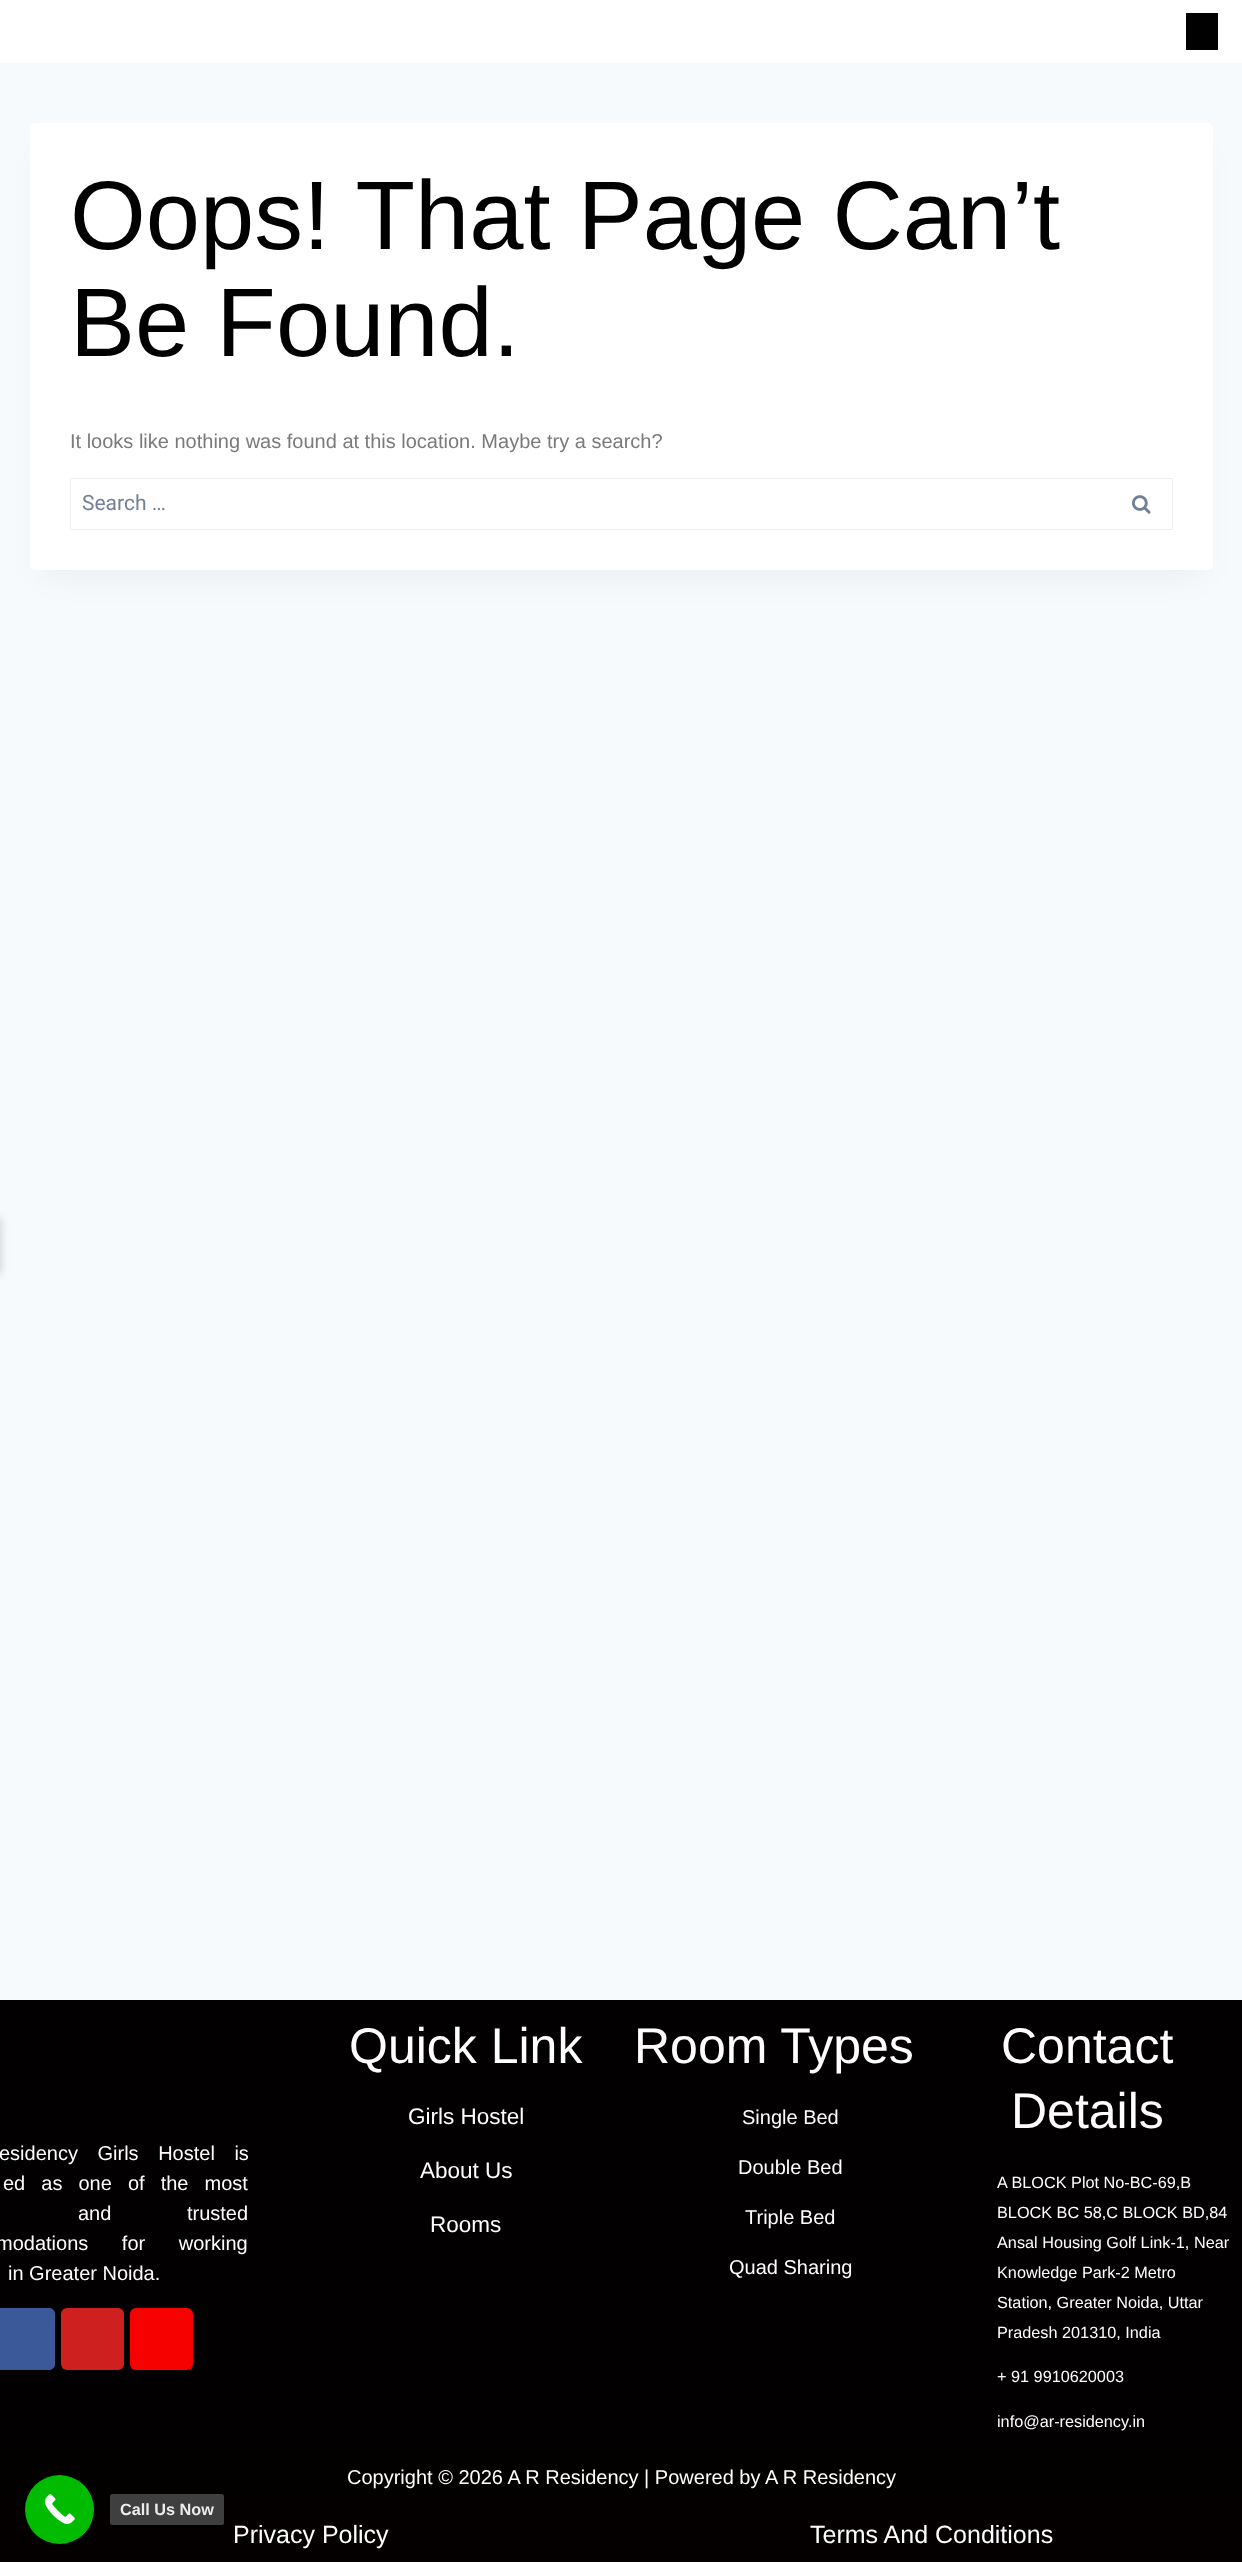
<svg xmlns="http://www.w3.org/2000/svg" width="1242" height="2562">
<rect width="100%" height="100%" fill="#f7fafc"/>
<rect width="1242" height="63" fill="#fff"/>
<rect x="1186" y="13" width="32" height="37" fill="#020101"/>
<rect x="43" y="154" width="1157" height="422" fill="#0000000d" filter="blur(15.5px)"/>
<rect x="30" y="123" width="1183" height="447" rx="5" fill="#fff"/>
<text x="70" y="249" style="font-family:Liberation Sans;font-size:97.5px;fill:#000">Oops! That Page Can’t</text>
<text x="70" y="356" style="font-family:Liberation Sans;font-size:97.5px;fill:#000">Be Found.</text>
<text x="70" y="448" style="font-family:Liberation Sans;font-size:20px;fill:#7a7a7a">It looks like nothing was found at this location. Maybe try a search?</text>
<rect x="70.5" y="478.5" width="1102" height="51" fill="none" stroke="#f0f0f0"/>
<text x="82" y="510" style="font-family:Roboto;font-size:21px;fill:#718096">Search …</text>
<image x="1132" y="495" width="19" height="19" href="media/1.png"/>
<rect y="2000" width="1242" height="450" fill="#020000"/>
<text x="-1" y="2160" word-spacing="14" style="font-family:Liberation Sans;font-size:20px;fill:#fff">esidency Girls Hostel is</text>
<text x="3" y="2190" word-spacing="10.5" style="font-family:Liberation Sans;font-size:20px;fill:#fff">ed as one of the most</text>
<text x="78" y="2220" word-spacing="70" style="font-family:Liberation Sans;font-size:20px;fill:#fff">and trusted</text>
<text x="-4" y="2250" word-spacing="28" style="font-family:Liberation Sans;font-size:20px;fill:#fff">modations for working</text>
<text x="8" y="2280" style="font-family:Liberation Sans;font-size:20px;fill:#fff">in Greater Noida.</text>
<path d="M0 2308h49c3.5 0 6 2.5 6 6v50c0 3.5-2.5 6-6 6h-49z" fill="#3b5998"/>
<rect x="61" y="2308" width="63" height="62" rx="6" fill="#cd201f"/>
<rect x="130" y="2308" width="63" height="62" rx="6" fill="#f70000"/>
<text x="349" y="2063" style="font-family:Liberation Sans;font-size:50px;fill:#fff">Quick Link</text>
<text x="408" y="2124" style="font-family:Liberation Sans;font-size:22.5px;fill:#fff">Girls Hostel</text>
<text x="420" y="2178" style="font-family:Liberation Sans;font-size:22.5px;fill:#fff">About Us</text>
<text x="430" y="2232" style="font-family:Liberation Sans;font-size:22.5px;fill:#fff">Rooms</text>
<text x="634" y="2063" style="font-family:Liberation Sans;font-size:50px;fill:#fff">Room Types</text>
<text x="742" y="2124" style="font-family:Liberation Sans;font-size:20px;fill:#fff">Single Bed</text>
<text x="738" y="2174" style="font-family:Liberation Sans;font-size:20px;fill:#fff">Double Bed</text>
<text x="745" y="2224" style="font-family:Liberation Sans;font-size:20px;fill:#fff">Triple Bed</text>
<text x="729" y="2274" style="font-family:Liberation Sans;font-size:20px;fill:#fff">Quad Sharing</text>
<text x="1001" y="2063" style="font-family:Liberation Sans;font-size:50px;fill:#fff">Contact</text>
<text x="1011" y="2128" style="font-family:Liberation Sans;font-size:50px;fill:#fff">Details</text>
<text x="997" y="2188" style="font-family:Liberation Sans;font-size:16.25px;fill:#fff">A BLOCK Plot No-BC-69,B</text>
<text x="997" y="2218" style="font-family:Liberation Sans;font-size:16.25px;fill:#fff">BLOCK BC 58,C BLOCK BD,84</text>
<text x="997" y="2248" style="font-family:Liberation Sans;font-size:16.25px;fill:#fff">Ansal Housing Golf Link-1, Near</text>
<text x="997" y="2278" style="font-family:Liberation Sans;font-size:16.25px;fill:#fff">Knowledge Park-2 Metro</text>
<text x="997" y="2308" style="font-family:Liberation Sans;font-size:16.25px;fill:#fff">Station, Greater Noida, Uttar</text>
<text x="997" y="2338" style="font-family:Liberation Sans;font-size:16.25px;fill:#fff">Pradesh 201310, India</text>
<text x="997" y="2382" style="font-family:Liberation Sans;font-size:16.25px;fill:#fff">+ 91 9910620003</text>
<text x="997" y="2427" style="font-family:Liberation Sans;font-size:16.25px;fill:#fff">info@ar-residency.in</text>
<rect y="2450" width="1242" height="55" fill="#030000"/>
<text x="347" y="2484" style="font-family:Liberation Sans;font-size:20px;fill:#fff">Copyright © 2026 A R Residency | Powered by A R Residency</text>
<rect y="2505" width="1242" height="57" fill="#050000"/>
<text x="233" y="2543" style="font-family:Liberation Sans;font-size:25px;fill:#fff">Privacy Policy</text>
<text x="810" y="2543" style="font-family:Liberation Sans;font-size:25px;fill:#fff">Terms And Conditions</text>
<rect x="-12" y="1218" width="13" height="56" fill="#00000029" filter="blur(4px)"/>
<circle cx="59.5" cy="2509.5" r="34.5" fill="#0b0"/>
<image x="44" y="2494" width="31" height="30" href="media/2.png"/>
<rect x="110" y="2494" width="114" height="31" rx="2.5" fill="#3f3f3f"/>
<text x="120" y="2515" style="font-family:Liberation Sans;font-size:16.25px;font-weight:bold;fill:#ececec">Call Us Now</text>
</svg>
